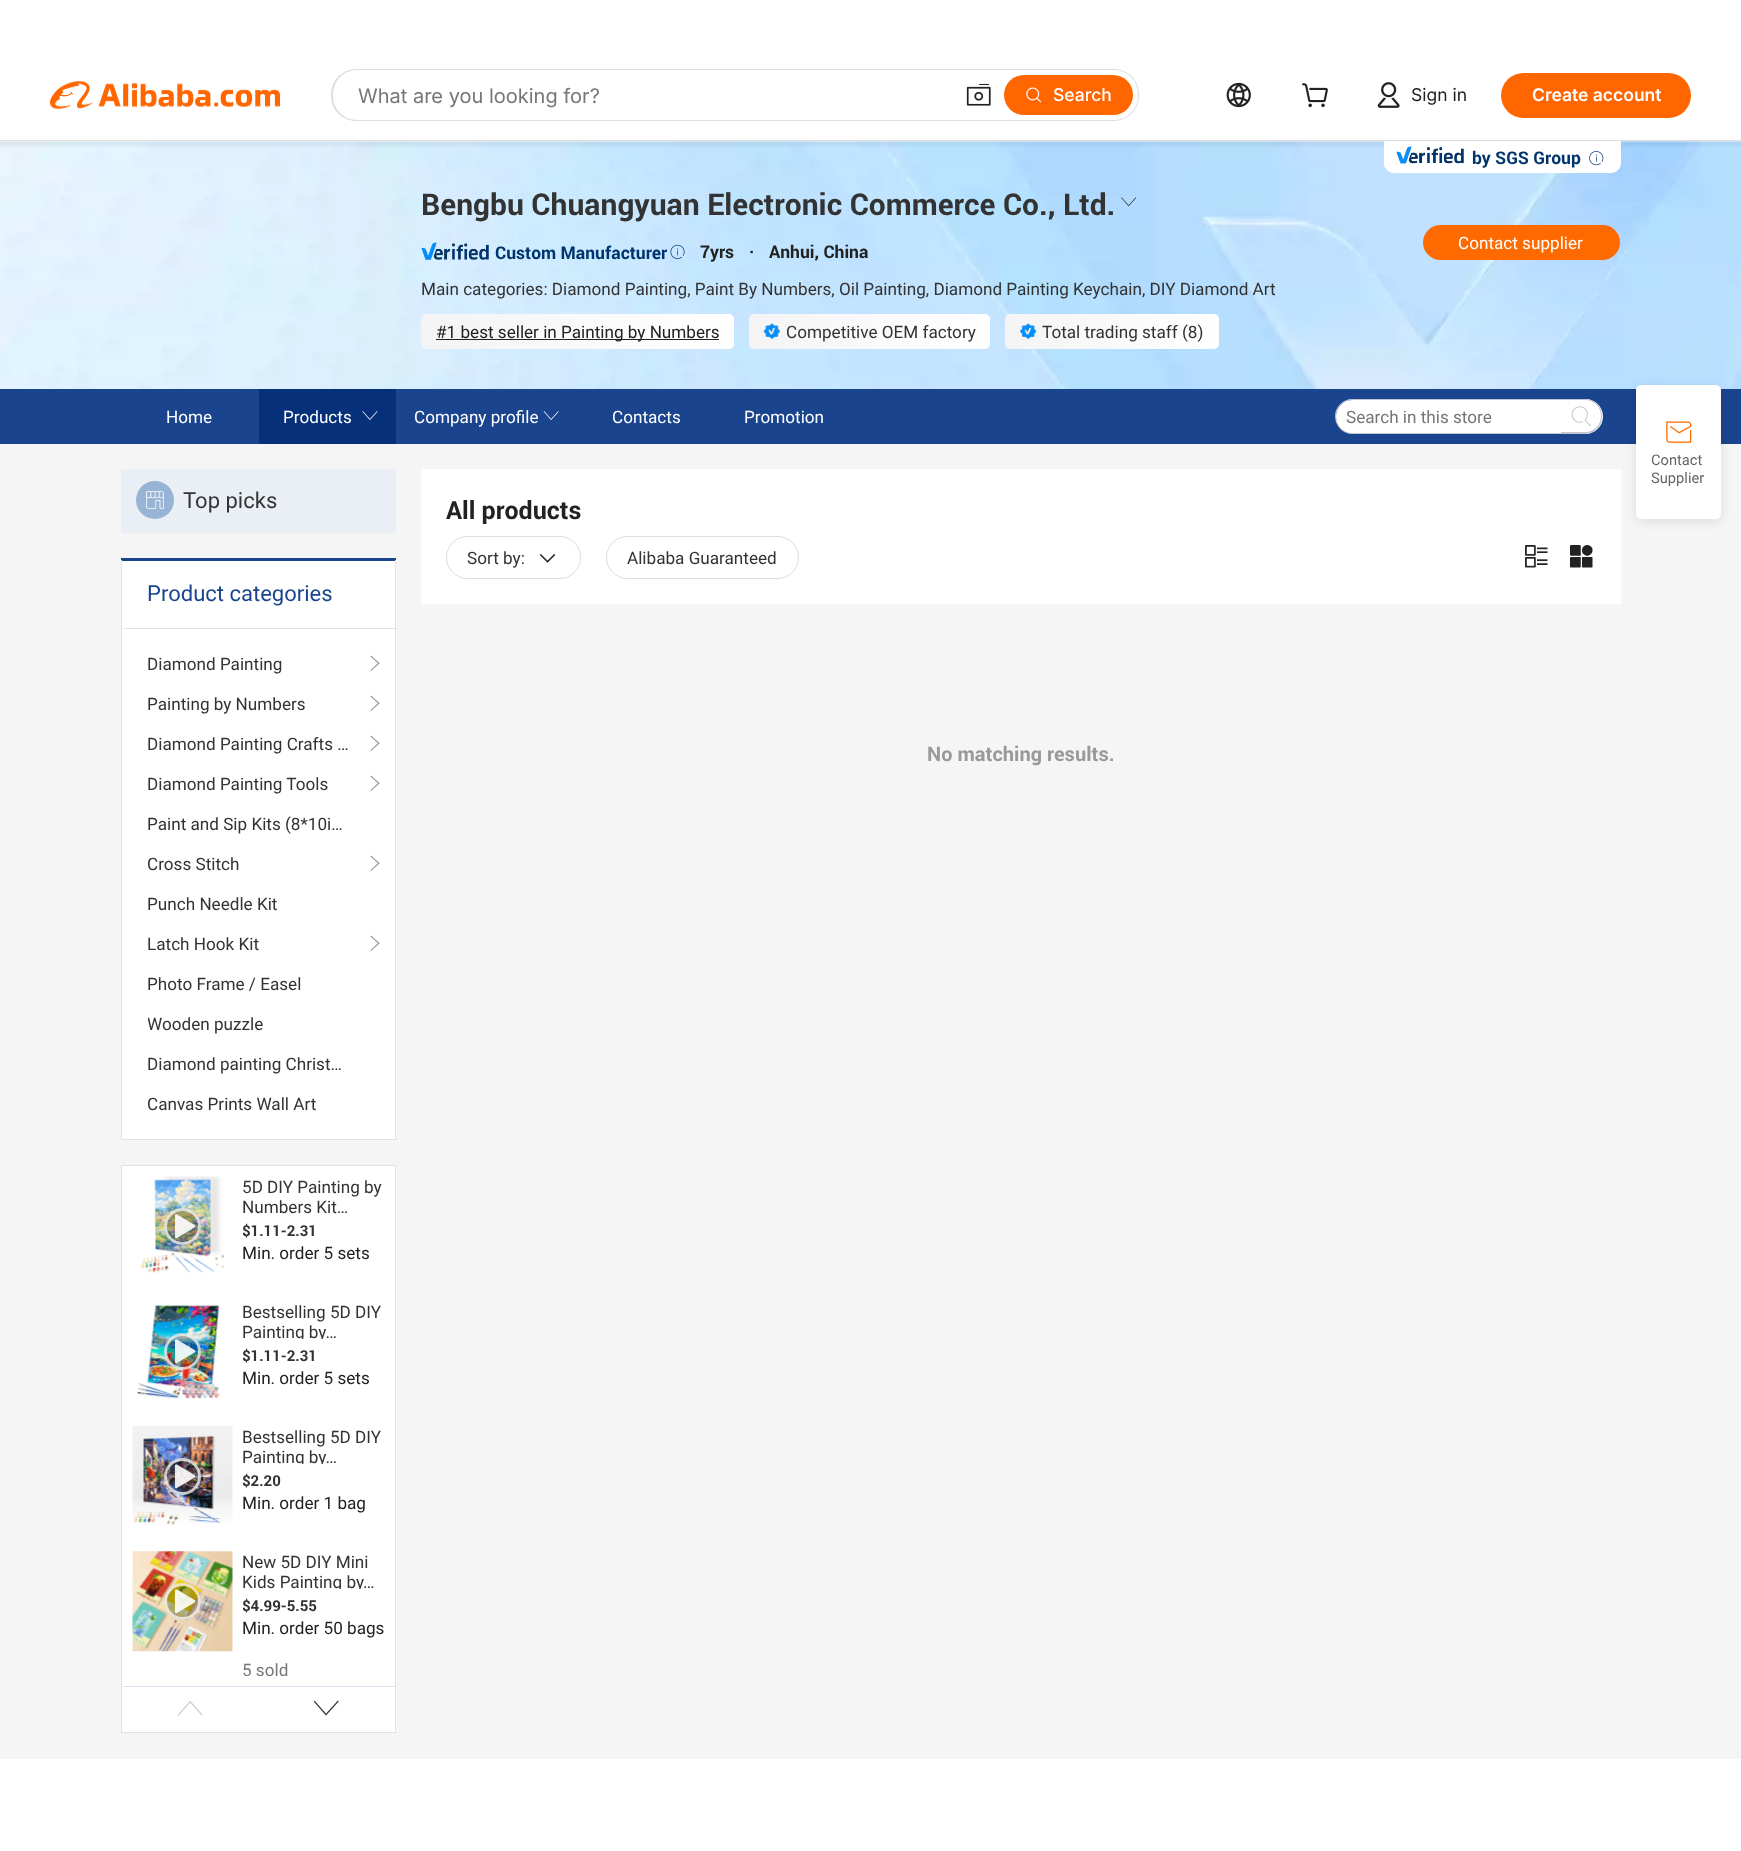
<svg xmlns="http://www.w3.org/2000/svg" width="1741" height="1851">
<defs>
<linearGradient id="g1" gradientUnits="userSpaceOnUse" x1="734" y1="331" x2="421" y2="331"><stop offset="0" stop-color="#fff"/><stop offset="1" stop-color="#f4f4f4"/></linearGradient>
<linearGradient id="g2" gradientUnits="userSpaceOnUse" x1="990" y1="331" x2="749" y2="331"><stop offset="0" stop-color="#fff"/><stop offset="1" stop-color="#f4f4f4"/></linearGradient>
<linearGradient id="g3" gradientUnits="userSpaceOnUse" x1="1219" y1="331" x2="1005" y2="331"><stop offset="0" stop-color="#fff"/><stop offset="1" stop-color="#f4f4f4"/></linearGradient>
<clipPath id="clip1"><rect x="148" y="1004" width="222" height="40"/></clipPath>
<clipPath id="clip2"><rect x="243" y="1221" width="142" height="18"/></clipPath>
<clipPath id="clip3"><rect x="243" y="1301" width="142" height="38"/></clipPath>
<clipPath id="clip4"><rect x="243" y="1346" width="142" height="18"/></clipPath>
<clipPath id="clip5"><rect x="243" y="1426" width="142" height="38"/></clipPath>
<clipPath id="clip6"><rect x="243" y="1471" width="142" height="18"/></clipPath>
<clipPath id="clip7"><rect x="243" y="1551" width="142" height="38"/></clipPath>
<clipPath id="clip8"><rect x="243" y="1596" width="142" height="18"/></clipPath>
<clipPath id="clip9"><rect x="243" y="1551" width="142" height="125"/></clipPath>
</defs>
<rect width="100%" height="100%" fill="#fff"/>
<image x="0" y="141" width="1741" height="248" href="media/7.png"/>
<rect x="-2" y="141" width="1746" height="5" fill="#0000000d" filter="blur(1px)"/>
<rect y="140" width="1741" height="1" fill="#ddd"/>
<image x="50" y="81" width="230" height="28" href="media/1.png"/>
<rect x="331" y="69" width="808" height="52" rx="25" fill="#ddd"/>
<rect x="333" y="70" width="805" height="50" rx="24" fill="#fff"/>
<text x="358" y="103" style="font-family:Inter;font-size:20px;fill:#767676">What are you looking for?</text>
<image x="966" y="84" width="25" height="22" href="media/2.png"/>
<rect x="1004" y="75" width="129" height="40" rx="20" fill="#f60"/>
<image x="1026" y="87" width="16" height="16" href="media/3.png"/>
<text x="1053" y="101" style="font-family:Inter;font-size:17.5px;font-weight:500;fill:#fff">Search</text>
<image x="1226" y="82" width="25" height="26" href="media/4.png"/>
<image x="1302" y="83" width="26" height="25" href="media/5.png"/>
<image x="1377" y="82" width="23" height="26" href="media/6.png"/>
<text x="1411" y="101" style="font-family:Inter;font-size:17.5px;fill:#222">Sign in</text>
<rect x="1501" y="73" width="190" height="45" rx="22.5" fill="#f60"/>
<text x="1532" y="101" style="font-family:Inter;font-size:17.5px;font-weight:600;fill:#fff">Create account</text>
<path d="M1384 141h237v22c0 5.5-4.5 10-10 10h-217c-5.5 0-10-4.5-10-10z" fill="#fff"/>
<image x="1396" y="146" width="68" height="18" href="media/8.png"/>
<text x="1472" y="164" style="font-family:Roboto;font-size:17.5px;font-weight:bold;fill:#00346e">by SGS Group</text>
<image x="1589" y="151" width="15" height="15" href="media/9.png"/>
<text x="421" y="215" style="font-family:Roboto;font-size:30px;font-weight:bold;fill:#333">Bengbu Chuangyuan Electronic Commerce Co., Ltd.</text>
<image x="1121" y="197" width="16" height="10" href="media/10.png"/>
<image x="421" y="242" width="68" height="18" href="media/11.png"/>
<text x="495" y="259" style="font-family:Roboto;font-size:17.5px;font-weight:bold;fill:#00346e">Custom Manufacturer</text>
<image x="670" y="244" width="15" height="15" href="media/12.png"/>
<text x="700" y="258" style="font-family:Roboto;font-size:17.5px;font-weight:bold;fill:#222">7yrs</text>
<text x="749" y="258" style="font-family:Roboto;font-size:17.5px;font-weight:bold;fill:#222">·</text>
<text x="769" y="258" style="font-family:Roboto;font-size:17.5px;font-weight:bold;fill:#222">Anhui, China</text>
<text x="421" y="295" style="font-family:Roboto;font-size:17.5px;fill:#333">Main categories: Diamond Painting, Paint By Numbers, Oil Painting, Diamond Painting Keychain, DIY Diamond Art</text>
<rect x="421" y="314" width="313" height="35" rx="5" fill="url(#g1)"/>
<rect x="436" y="339" width="283" height="1" fill="#222"/>
<text x="436" y="338" style="font-family:Roboto;font-size:17.5px;fill:#222">#1 best seller in Painting by Numbers</text>
<rect x="749" y="314" width="241" height="35" rx="5" fill="url(#g2)"/>
<image x="763" y="323" width="17" height="16" href="media/13.png"/>
<text x="786" y="338" style="font-family:Roboto;font-size:17.5px;fill:#333">Competitive OEM factory</text>
<rect x="1005" y="314" width="214" height="35" rx="5" fill="url(#g3)"/>
<image x="1020" y="323" width="17" height="16" href="media/14.png"/>
<text x="1042" y="338" style="font-family:Roboto;font-size:17.5px;fill:#333">Total trading staff (8)</text>
<rect x="1423" y="225" width="197" height="35" rx="17.5" fill="#ff6a00"/>
<text x="1458" y="249" style="font-family:Roboto;font-size:17.5px;fill:#fff">Contact supplier</text>
<rect y="389" width="1741" height="55" fill="#1a448e"/>
<text x="166" y="423" style="font-family:Roboto;font-size:17.5px;fill:#fff">Home</text>
<rect x="259" y="389" width="137" height="55" fill="#06307a"/>
<text x="283" y="423" style="font-family:Roboto;font-size:17.5px;fill:#fff">Products</text>
<image x="362" y="411" width="16" height="9" href="media/15.png"/>
<text x="414" y="423" style="font-family:Roboto;font-size:17.5px;fill:#fff">Company profile</text>
<image x="543" y="411" width="16" height="9" href="media/16.png"/>
<text x="612" y="423" style="font-family:Roboto;font-size:17.5px;fill:#fff">Contacts</text>
<text x="744" y="423" style="font-family:Roboto;font-size:17.5px;fill:#fff">Promotion</text>
<path d="M1352 399h209v35h-209c-9 0-17-8-17-18c0-9 8-17 17-17zm0 1h209v32h-209c-8 0-16-7-16-16c0-9 8-16 16-16z" fill="#c4c6cf" fill-rule="evenodd"/>
<path d="M1352.5 400h208c.5 0 .5 0 .5 .5v32c0 .5 0 .5-.5 .5h-208c-9 0-16.5-7.5-16.5-16.5c0-9 7.5-16.5 16.5-16.5z" fill="#fff"/>
<text x="1346" y="423" style="font-family:Roboto;font-size:17.5px;fill:#767676">Search in this store</text>
<path d="M1561 399h24.5c9.5 0 17.5 8 17.5 17.5c0 9.5-8 17.5-17.5 17.5h-24.5z" fill="#fff"/>
<path d="M1561 399h24c10 0 17 8 17 17c0 10-7 18-17 18h-24zm0 1h24c9 0 16 7 16 16c0 9-7 16-16 16h-24z" fill="#c4c6cf" fill-rule="evenodd"/>
<image x="1571" y="406" width="20" height="21" href="media/17.png"/>
<rect y="444" width="1741" height="1315" fill="#f5f5f5"/>
<rect x="121" y="469" width="275" height="64" fill="#e9eff5"/>
<circle cx="155" cy="500" r="19" fill="#97b3d5"/>
<image x="146" y="491" width="18" height="18" href="media/18.png"/>
<text x="183" y="508" style="font-family:Roboto;font-size:22.5px;fill:#333">Top picks</text>
<rect x="122" y="561" width="273" height="578" fill="#fff"/>
<rect x="121" y="558" width="275" height="3" fill="#1a448e"/>
<rect x="395" y="560" width="1" height="580" fill="#dbe3ef"/>
<rect x="121" y="1139" width="275" height="1" fill="#dbe3ef"/>
<rect x="121" y="560" width="1" height="580" fill="#dbe3ef"/>
<rect x="123" y="628" width="272" height="1" fill="#dbe3ef"/>
<text x="147" y="601" style="font-family:Roboto;font-size:22.5px;fill:#1a448e">Product categories</text>
<text x="147" y="670" style="font-family:Roboto;font-size:17.5px;fill:#333">Diamond Painting</text>
<image x="370" y="655" width="10" height="16" href="media/19.png"/>
<text x="147" y="710" style="font-family:Roboto;font-size:17.5px;fill:#333">Painting by Numbers</text>
<image x="370" y="695" width="10" height="16" href="media/19.png"/>
<text x="147" y="750" style="font-family:Roboto;font-size:17.5px;fill:#333">Diamond Painting Crafts …</text>
<image x="370" y="735" width="10" height="16" href="media/19.png"/>
<text x="147" y="790" style="font-family:Roboto;font-size:17.5px;fill:#333">Diamond Painting Tools</text>
<image x="370" y="775" width="10" height="16" href="media/19.png"/>
<text x="147" y="830" style="font-family:Roboto;font-size:17.5px;fill:#333">Paint and Sip Kits (8*10i…</text>
<text x="147" y="870" style="font-family:Roboto;font-size:17.5px;fill:#333">Cross Stitch</text>
<image x="370" y="855" width="10" height="16" href="media/19.png"/>
<text x="147" y="910" style="font-family:Roboto;font-size:17.5px;fill:#333">Punch Needle Kit</text>
<text x="147" y="950" style="font-family:Roboto;font-size:17.5px;fill:#333">Latch Hook Kit</text>
<image x="370" y="935" width="10" height="16" href="media/19.png"/>
<text x="147" y="990" style="font-family:Roboto;font-size:17.5px;fill:#333">Photo Frame / Easel</text>
<g clip-path="url(#clip1)">
<text x="147" y="1030" style="font-family:Roboto;font-size:17.5px;fill:#333">Wooden puzzle</text>
</g>
<text x="147" y="1070" style="font-family:Roboto;font-size:17.5px;fill:#333">Diamond painting Christ…</text>
<text x="147" y="1110" style="font-family:Roboto;font-size:17.5px;fill:#333">Canvas Prints Wall Art</text>
<rect x="121.5" y="1165.5" width="274" height="567" fill="#fff" stroke="#dbe3ef"/>
<image x="140" y="1176" width="85" height="97" href="media/20.png"/>
<circle cx="182.5" cy="1226.5" r="18.5" fill="#00000045"/>
<circle cx="182.5" cy="1226.5" r="17" fill="none" stroke="#ffffffb8" stroke-width="3"/>
<image x="174" y="1214" width="22" height="25" href="media/21.png"/>
<text x="242" y="1193" style="font-family:Roboto;font-size:17.5px;fill:#333">5D DIY Painting by</text>
<text x="242" y="1213" style="font-family:Roboto;font-size:17.5px;fill:#333">Numbers Kit…</text>
<g clip-path="url(#clip2)">
<text x="242" y="1236" style="font-family:Roboto;font-size:15px;font-weight:bold;fill:#333">$1.11-2.31</text>
</g>
<text x="242" y="1259" style="font-family:Roboto;font-size:17.5px;fill:#222">Min. order 5 sets</text>
<image x="137" y="1305" width="83" height="94" href="media/22.png"/>
<circle cx="182.5" cy="1351.5" r="18.5" fill="#00000045"/>
<circle cx="182.5" cy="1351.5" r="17" fill="none" stroke="#ffffffb8" stroke-width="3"/>
<image x="174" y="1339" width="22" height="25" href="media/23.png"/>
<text x="242" y="1318" style="font-family:Roboto;font-size:17.5px;fill:#333">Bestselling 5D DIY</text>
<g clip-path="url(#clip3)">
<text x="242" y="1338" style="font-family:Roboto;font-size:17.5px;fill:#333">Painting by…</text>
</g>
<g clip-path="url(#clip4)">
<text x="242" y="1361" style="font-family:Roboto;font-size:15px;font-weight:bold;fill:#333">$1.11-2.31</text>
</g>
<text x="242" y="1384" style="font-family:Roboto;font-size:17.5px;fill:#222">Min. order 5 sets</text>
<image x="132" y="1426" width="101" height="99" href="media/24.png"/>
<circle cx="182.5" cy="1476.5" r="18.5" fill="#00000045"/>
<circle cx="182.5" cy="1476.5" r="17" fill="none" stroke="#ffffffb8" stroke-width="3"/>
<image x="174" y="1464" width="22" height="25" href="media/25.png"/>
<text x="242" y="1443" style="font-family:Roboto;font-size:17.5px;fill:#333">Bestselling 5D DIY</text>
<g clip-path="url(#clip5)">
<text x="242" y="1463" style="font-family:Roboto;font-size:17.5px;fill:#333">Painting by…</text>
</g>
<g clip-path="url(#clip6)">
<text x="242" y="1486" style="font-family:Roboto;font-size:15px;font-weight:bold;fill:#333">$2.20</text>
</g>
<text x="242" y="1509" style="font-family:Roboto;font-size:17.5px;fill:#222">Min. order 1 bag</text>
<image x="132" y="1551" width="101" height="101" href="media/26.png"/>
<circle cx="182.5" cy="1601.5" r="18.5" fill="#00000045"/>
<circle cx="182.5" cy="1601.5" r="17" fill="none" stroke="#ffffffb8" stroke-width="3"/>
<image x="174" y="1589" width="22" height="25" href="media/27.png"/>
<text x="242" y="1568" style="font-family:Roboto;font-size:17.5px;fill:#333">New 5D DIY Mini</text>
<g clip-path="url(#clip7)">
<text x="242" y="1588" style="font-family:Roboto;font-size:17.5px;fill:#333">Kids Painting by…</text>
</g>
<g clip-path="url(#clip8)">
<text x="242" y="1611" style="font-family:Roboto;font-size:15px;font-weight:bold;fill:#333">$4.99-5.55</text>
</g>
<text x="242" y="1634" style="font-family:Roboto;font-size:17.5px;fill:#222">Min. order 50 bags</text>
<g clip-path="url(#clip9)">
<text x="242" y="1676" style="font-family:Roboto;font-size:17.5px;fill:#767676">5 sold</text>
</g>
<rect x="123" y="1686" width="272" height="1" fill="#dbe3ef"/>
<image x="177" y="1701" width="26" height="15" href="media/28.png"/>
<image x="313" y="1700" width="26" height="16" href="media/29.png"/>
<rect x="421" y="469" width="1200" height="135" fill="#fff"/>
<text x="446" y="519" style="font-family:Roboto;font-size:25px;font-weight:bold;fill:#222">All products</text>
<rect x="446.5" y="536.5" width="134" height="42" rx="21" fill="none" stroke="#ddd"/>
<text x="467" y="564" style="font-family:Roboto;font-size:17.5px;fill:#333">Sort by:</text>
<image x="539" y="553" width="17" height="10" href="media/30.png"/>
<rect x="606.5" y="536.5" width="192" height="42" rx="21" fill="none" stroke="#ddd"/>
<text x="627" y="564" style="font-family:Roboto;font-size:17.5px;fill:#333">Alibaba Guaranteed</text>
<image x="1525" y="545" width="23" height="23" href="media/31.png"/>
<image x="1570" y="544" width="24" height="24" href="media/32.png"/>
<text x="927" y="761" style="font-family:Roboto;font-size:20px;font-weight:bold;fill:#999">No matching results.</text>
<rect x="1636" y="388" width="85" height="133" rx="5" fill="#0000001a" filter="blur(6px)"/>
<rect x="1636" y="385" width="85" height="134" rx="5" fill="#fff"/>
<image x="1666" y="421" width="26" height="22" href="media/33.png"/>
<text x="1651" y="465" style="font-family:Roboto;font-size:15px;fill:#666">Contact</text>
<text x="1651" y="483" style="font-family:Roboto;font-size:15px;fill:#666">Supplier</text>
</svg>
